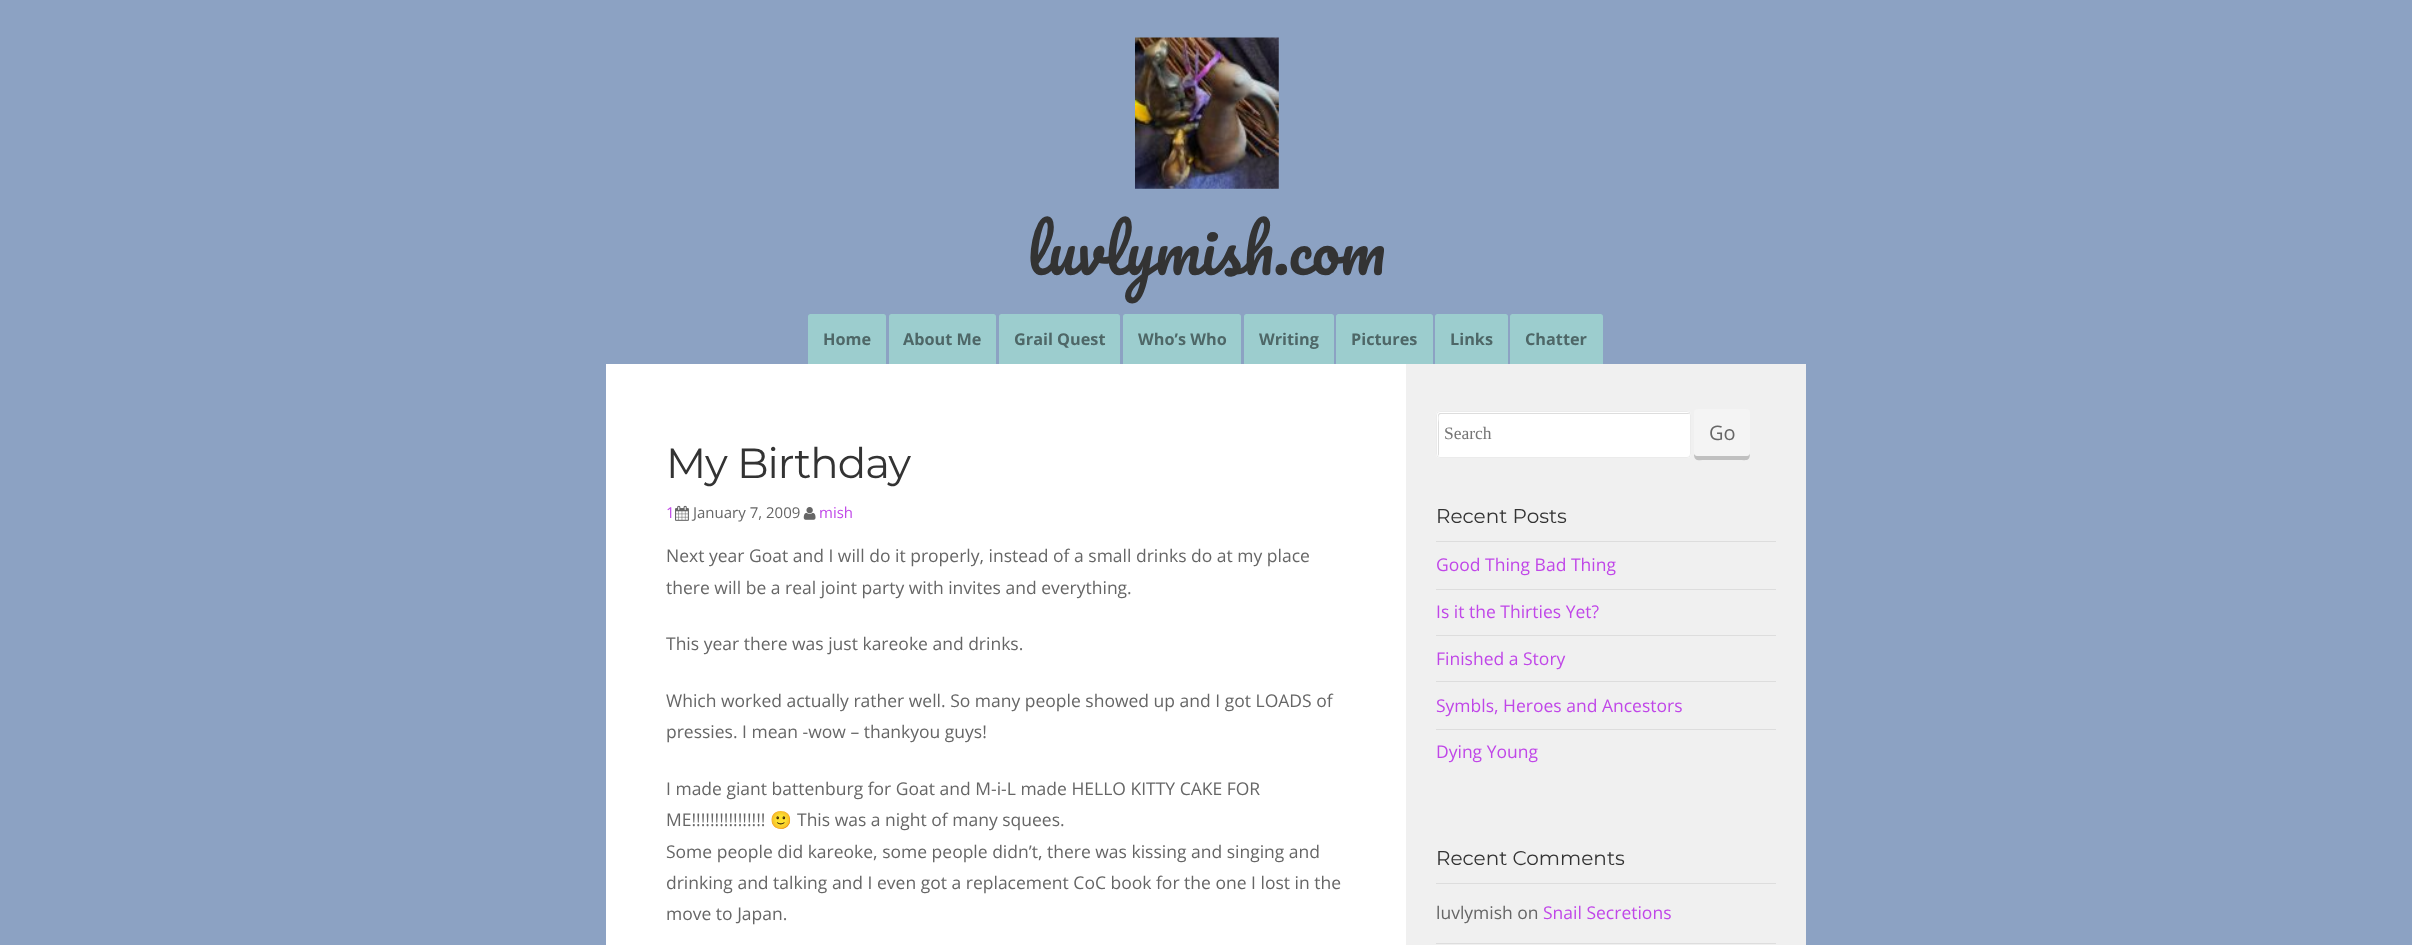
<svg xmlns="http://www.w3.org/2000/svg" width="2412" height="945">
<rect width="100%" height="100%" fill="#8ca2c3"/>
<image x="1135" y="37" width="144" height="152" href="media/1.png"/>
<text x="1027" y="275" style="font-family:Pacifico;font-size:62.5px;fill:#333">luvlymish.com</text>
<path d="M810.5 314h73c1.5 0 2.5 1 2.5 2.5v47.5h-78v-47.5c0-1.5 1-2.5 2.5-2.5z" fill="#9ccdce"/>
<text x="823" y="345" style="font-family:Open Sans;font-size:16.25px;font-weight:bold;fill:#4e6767">Home</text>
<path d="M891.5 314h102c1.5 0 2.5 1 2.5 2.5v47.5h-107v-47.5c0-1.5 1-2.5 2.5-2.5z" fill="#9ccdce"/>
<text x="903" y="345" style="font-family:Open Sans;font-size:16.25px;font-weight:bold;fill:#4e6767">About Me</text>
<path d="M1001.5 314h116c1.5 0 2.5 1 2.5 2.5v47.5h-121v-47.5c0-1.5 1-2.5 2.5-2.5z" fill="#9ccdce"/>
<text x="1014" y="345" style="font-family:Open Sans;font-size:16.25px;font-weight:bold;fill:#4e6767">Grail Quest</text>
<path d="M1125.5 314h113c1.5 0 2.5 1 2.5 2.5v47.5h-118v-47.5c0-1.5 1-2.5 2.5-2.5z" fill="#9ccdce"/>
<text x="1138" y="345" style="font-family:Open Sans;font-size:16.25px;font-weight:bold;fill:#4e6767">Who’s Who</text>
<path d="M1246.5 314h85c1.5 0 2.5 1 2.5 2.5v47.5h-90v-47.5c0-1.5 1-2.5 2.5-2.5z" fill="#9ccdce"/>
<text x="1259" y="345" style="font-family:Open Sans;font-size:16.25px;font-weight:bold;fill:#4e6767">Writing</text>
<path d="M1338.5 314h92c1.5 0 2.5 1 2.5 2.5v47.5h-97v-47.5c0-1.5 1-2.5 2.5-2.5z" fill="#9ccdce"/>
<text x="1351" y="345" style="font-family:Open Sans;font-size:16.25px;font-weight:bold;fill:#4e6767">Pictures</text>
<path d="M1437.5 314h68c1.5 0 2.5 1 2.5 2.5v47.5h-73v-47.5c0-1.5 1-2.5 2.5-2.5z" fill="#9ccdce"/>
<text x="1450" y="345" style="font-family:Open Sans;font-size:16.25px;font-weight:bold;fill:#4e6767">Links</text>
<path d="M1512.5 314h88c1.5 0 2.5 1 2.5 2.5v47.5h-93v-47.5c0-1.5 1-2.5 2.5-2.5z" fill="#9ccdce"/>
<text x="1525" y="345" style="font-family:Open Sans;font-size:16.25px;font-weight:bold;fill:#4e6767">Chatter</text>
<rect x="606" y="364" width="800" height="581" fill="#fff"/>
<text x="666" y="478" style="font-family:Montserrat;font-size:42px;font-weight:100;letter-spacing:-1px;fill:#333">My Birthday</text>
<text x="666" y="518" style="font-family:Open Sans;font-size:15px;fill:#c047e8">1</text>
<image x="675" y="505" width="14" height="16" href="media/2.png"/>
<text x="693" y="518" style="font-family:Open Sans;font-size:15px;fill:#666">January 7, 2009</text>
<image x="803" y="507" width="13" height="13" href="media/3.png"/>
<text x="819" y="518" style="font-family:Open Sans;font-size:15px;fill:#c047e8">mish</text>
<text x="666" y="562" style="font-family:Open Sans;font-size:17.5px;fill:#666">Next year Goat and I will do it properly, instead of a small drinks do at my place</text>
<text x="666" y="594" style="font-family:Open Sans;font-size:17.5px;fill:#666">there will be a real joint party with invites and everything.</text>
<text x="666" y="650" style="font-family:Open Sans;font-size:17.5px;fill:#666">This year there was just kareoke and drinks.</text>
<text x="666" y="707" style="font-family:Open Sans;font-size:17.5px;fill:#666">Which worked actually rather well. So many people showed up and I got LOADS of</text>
<text x="666" y="738" style="font-family:Open Sans;font-size:17.5px;fill:#666">pressies. I mean -wow – thankyou guys!</text>
<text x="666" y="795" style="font-family:Open Sans;font-size:17.5px;fill:#666">I made giant battenburg for Goat and M-i-L made HELLO KITTY CAKE FOR</text>
<text x="666" y="826" style="font-family:Open Sans;font-size:17.5px;fill:#666">ME!!!!!!!!!!!!!!!!</text>
<text x="770" y="826" style="font-family:Noto Color Emoji;font-size:17.5px;fill:#666">🙂</text>
<text x="797" y="826" style="font-family:Open Sans;font-size:17.5px;fill:#666">This was a night of many squees.</text>
<text x="666" y="858" style="font-family:Open Sans;font-size:17.5px;fill:#666">Some people did kareoke, some people didn’t, there was kissing and singing and</text>
<text x="666" y="889" style="font-family:Open Sans;font-size:17.5px;fill:#666">drinking and talking and I even got a replacement CoC book for the one I lost in the</text>
<text x="666" y="920" style="font-family:Open Sans;font-size:17.5px;fill:#666">move to Japan.</text>
<rect x="1406" y="364" width="400" height="581" fill="#f0f0f0"/>
<rect x="1436" y="411" width="255" height="47" rx="4" fill="#fff"/>
<path d="M1441 414h249c-1-1-2-1-2-1h-248c-1 0-2 1-2 3v38c0 0 0 1 1 2v-34c0 0-2-8 2-8z" fill="#ddd"/>
<rect x="1436.5" y="411.5" width="254" height="46" rx="3.5" fill="none" stroke="#00000014"/>
<text x="1444" y="439" style="font-family:Liberation Serif;font-size:17.5px;fill:#757575">Search</text>
<path d="M1694 454c0 8 5 6 12 6h32c9 0 12 2 12-8c0 3-2 4-4 4h-48c-2 0-3-1-4-2z" fill="#c0c0c0"/>
<rect x="1694" y="409" width="56" height="47" rx="4" fill="#f4f4f4"/>
<text x="1709" y="440" style="font-family:Open Sans;font-size:20px;fill:#666">Go</text>
<text x="1436" y="523" style="font-family:Montserrat;font-size:20px;font-weight:100;fill:#333">Recent Posts</text>
<rect x="1436" y="541" width="340" height="1" fill="#ddd"/>
<text x="1436" y="571" style="font-family:Open Sans;font-size:17.5px;fill:#c047e8">Good Thing Bad Thing</text>
<rect x="1436" y="589" width="340" height="1" fill="#ddd"/>
<text x="1436" y="618" style="font-family:Open Sans;font-size:17.5px;fill:#c047e8">Is it the Thirties Yet?</text>
<rect x="1436" y="635" width="340" height="1" fill="#ddd"/>
<text x="1436" y="665" style="font-family:Open Sans;font-size:17.5px;fill:#c047e8">Finished a Story</text>
<rect x="1436" y="681" width="340" height="1" fill="#ddd"/>
<text x="1436" y="712" style="font-family:Open Sans;font-size:17.5px;fill:#c047e8">Symbls, Heroes and Ancestors</text>
<rect x="1436" y="729" width="340" height="1" fill="#ddd"/>
<text x="1436" y="758" style="font-family:Open Sans;font-size:17.5px;fill:#c047e8">Dying Young</text>
<text x="1436" y="865" style="font-family:Montserrat;font-size:20px;font-weight:100;fill:#333">Recent Comments</text>
<rect x="1436" y="883" width="340" height="1" fill="#ddd"/>
<text x="1436" y="919" style="font-family:Open Sans;font-size:17.5px;fill:#666">luvlymish on</text>
<text x="1543" y="919" style="font-family:Open Sans;font-size:17.5px;fill:#c047e8">Snail Secretions</text>
<rect x="1436" y="943" width="340" height="1" fill="#ddd"/>
</svg>
